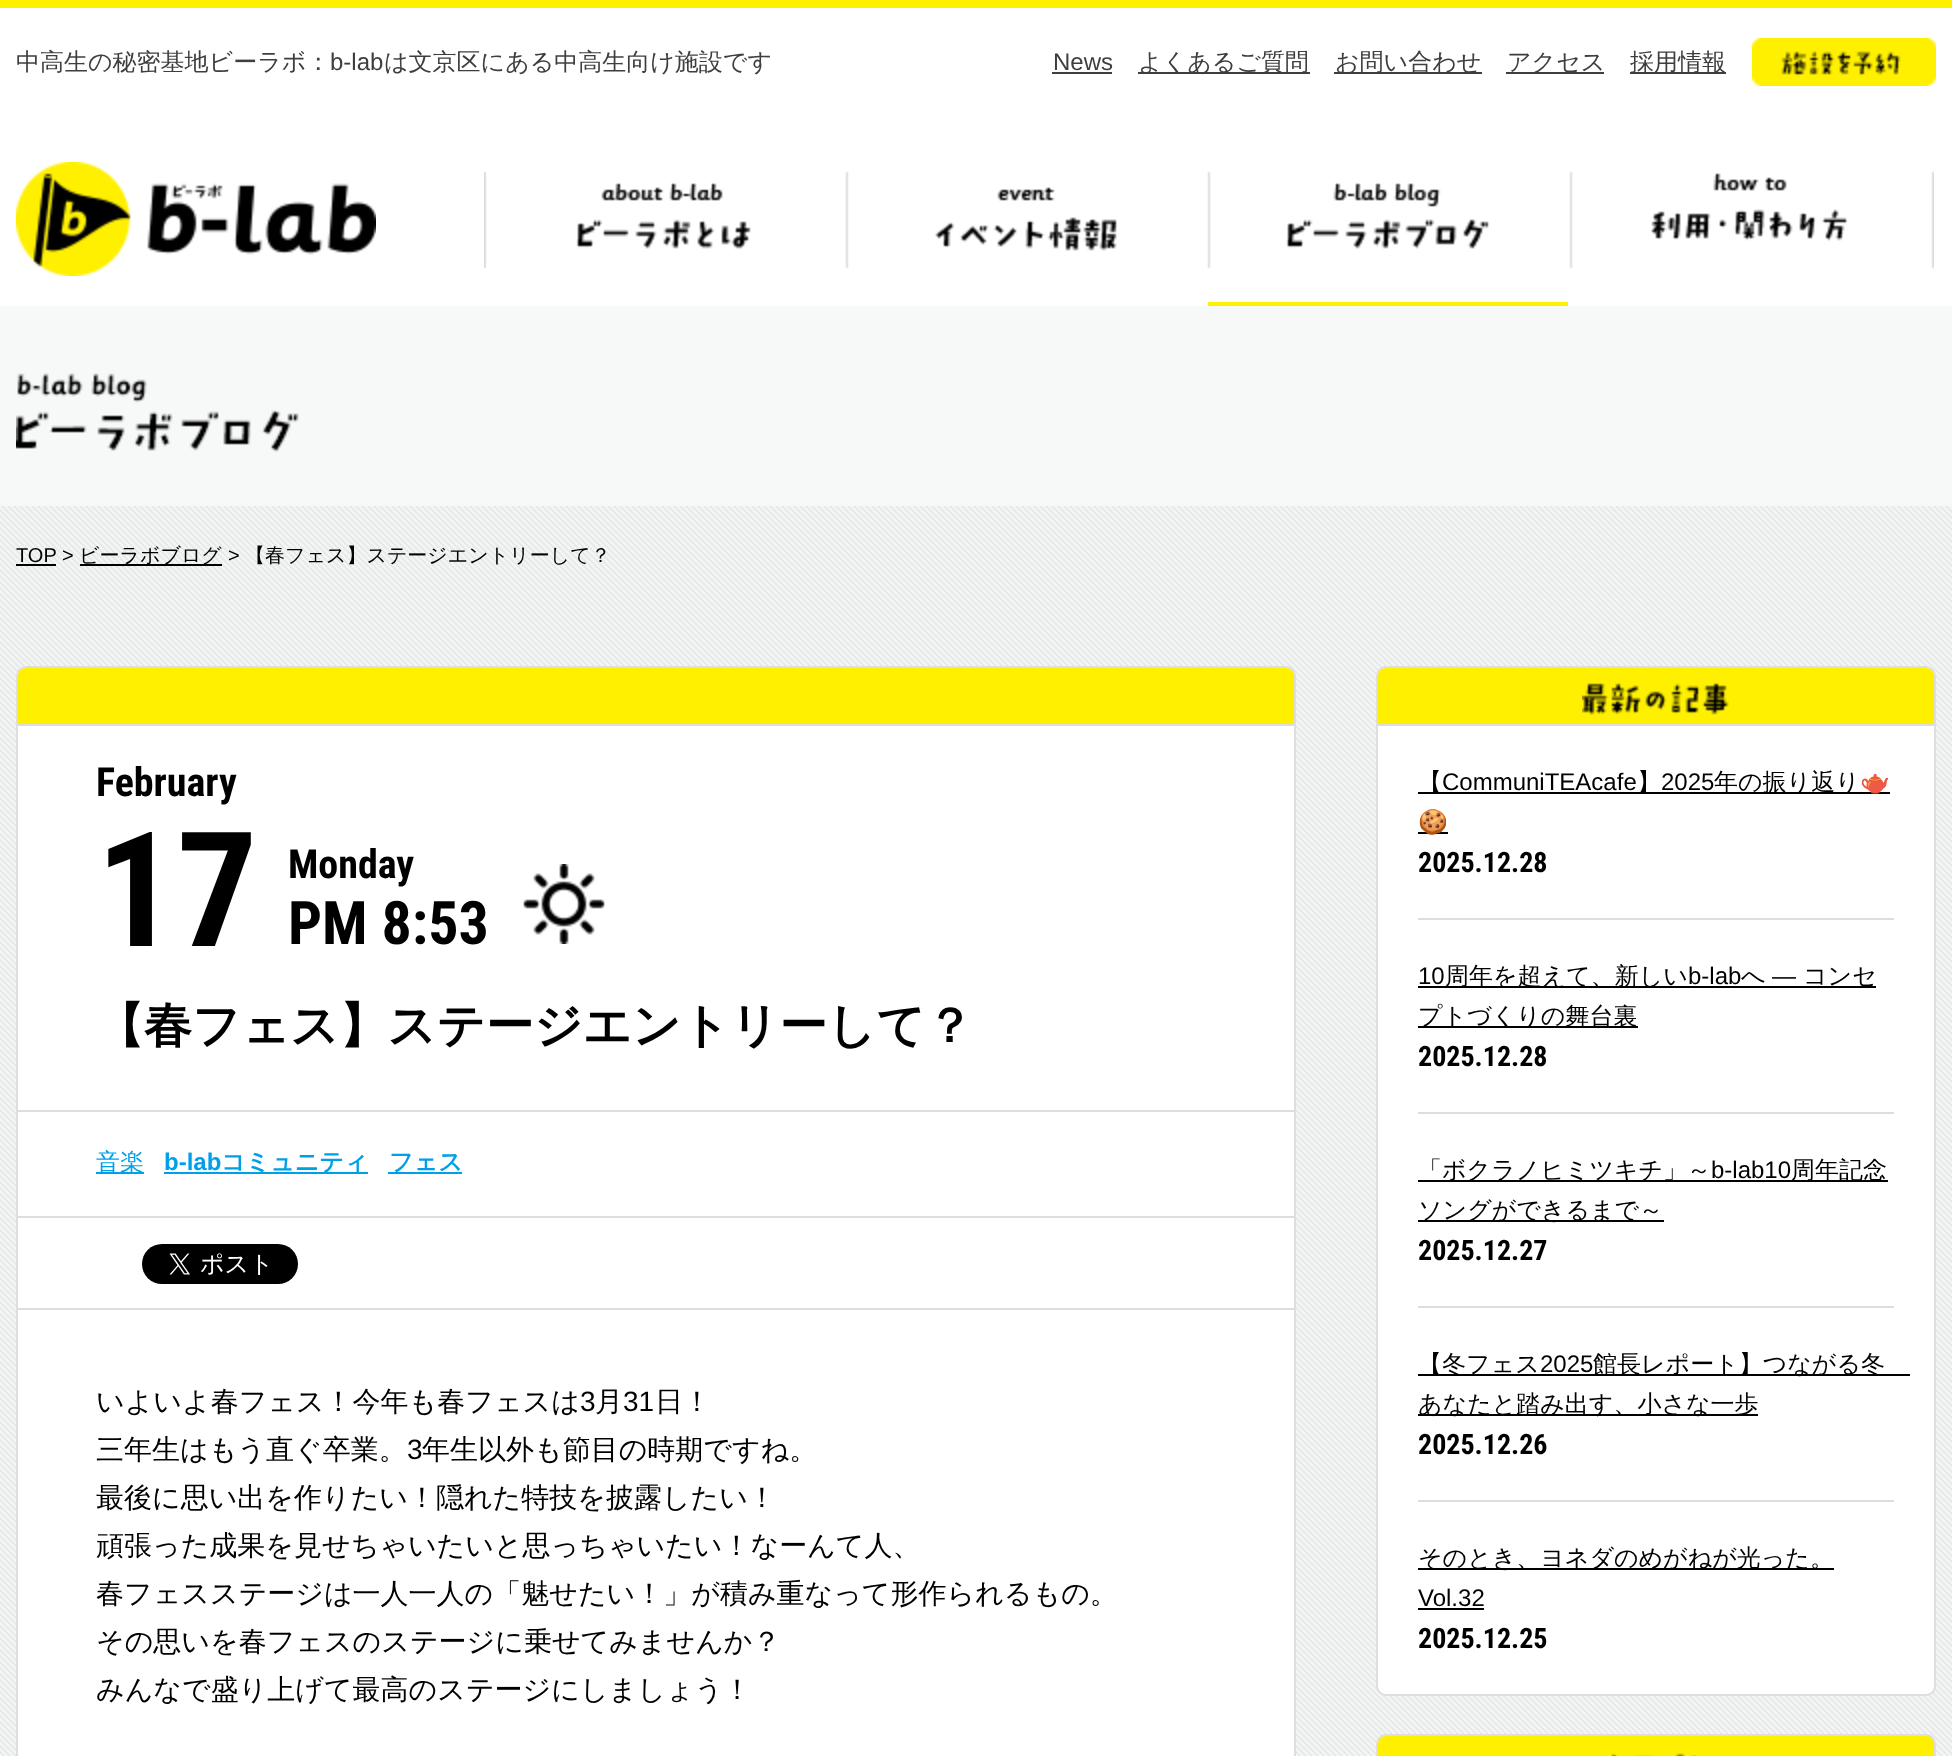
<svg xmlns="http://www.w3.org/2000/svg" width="1952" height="1756">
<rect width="100%" height="100%" fill="#fff"/>
<rect width="1952" height="8" fill="#fff000"/>
<text x="16" y="70" style="font-family:WenQuanYi Zen Hei;font-size:24px;font-weight:500;fill:#3e3e3e">中高生の秘密基地ビーラボ：</text>
<text x="330" y="70" style="font-family:Liberation Sans;font-size:24px;fill:#3e3e3e">b-lab</text>
<text x="384" y="70" style="font-family:WenQuanYi Zen Hei;font-size:24px;font-weight:500;fill:#3e3e3e">は文京区にある中高生向け施設です</text>
<text x="1053" y="70" style="font-family:Liberation Sans;font-size:24px;fill:#3e3e3e">News</text>
<rect x="1052" y="72" width="60" height="2" fill="#3e3e3e"/>
<rect x="1138" y="72" width="172" height="2" fill="#3e3e3e"/>
<text x="1138" y="70" style="font-family:WenQuanYi Zen Hei;font-size:24px;font-weight:500;fill:#3e3e3e">よくあるご質問</text>
<rect x="1334" y="72" width="148" height="2" fill="#3e3e3e"/>
<text x="1335" y="70" style="font-family:WenQuanYi Zen Hei;font-size:24px;font-weight:500;fill:#3e3e3e">お問い合わせ</text>
<rect x="1506" y="72" width="98" height="2" fill="#3e3e3e"/>
<text x="1507" y="70" style="font-family:WenQuanYi Zen Hei;font-size:24px;font-weight:500;fill:#3e3e3e">アクセス</text>
<rect x="1630" y="72" width="96" height="2" fill="#3e3e3e"/>
<text x="1630" y="70" style="font-family:WenQuanYi Zen Hei;font-size:24px;font-weight:500;fill:#3e3e3e">採用情報</text>
<image x="1752" y="38" width="184" height="48" href="media/1.png"/>
<image x="16" y="162" width="360" height="114" href="media/2.png"/>
<image x="484" y="171" width="1450" height="98" href="media/3.png"/>
<image x="576" y="183" width="175" height="66" href="media/4.png"/>
<image x="935" y="187" width="182" height="64" href="media/5.png"/>
<image x="1286" y="183" width="203" height="66" href="media/6.png"/>
<rect x="1208" y="302" width="360" height="4" fill="#fff000"/>
<image x="1651" y="173" width="197" height="68" href="media/7.png"/>
<rect y="306" width="1952" height="200" fill="#f7f8f8"/>
<image x="16" y="373" width="283" height="80" href="media/8.png"/>
<image x="0" y="506" width="1952" height="1250" href="media/9.png"/>
<text x="16" y="562" style="font-family:Liberation Sans;font-size:20px;fill:#000">TOP</text>
<rect x="16" y="564" width="40" height="2" fill="#000"/>
<text x="62" y="562" style="font-family:Liberation Sans;font-size:20px;fill:#000">&gt;</text>
<rect x="80" y="564" width="142" height="2" fill="#000"/>
<text x="79" y="562" style="font-family:WenQuanYi Zen Hei;font-size:20px;font-weight:500;fill:#000">ビーラボブログ</text>
<text x="228" y="562" style="font-family:Liberation Sans;font-size:20px;fill:#000">&gt;</text>
<text x="245" y="562" style="font-family:WenQuanYi Zen Hei;font-size:20px;font-weight:500;fill:#000">【春フェス】ステージエントリーして？</text>
<rect x="17" y="667" width="1278" height="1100" rx="9" fill="#fff" stroke="#dfdede" stroke-width="2"/>
<path d="M26 668h1260c4.5 0 8 3.5 8 8v50h-1276v-50c0-4.5 3.5-8 8-8z" fill="#fff000"/>
<rect x="18" y="724" width="1276" height="2" fill="#dfdede"/>
<rect x="18" y="1110" width="1276" height="2" fill="#dfdede"/>
<text x="96" y="796" style="font-family:Roboto Condensed;font-size:40px;font-weight:bold;fill:#000">February</text>
<text x="96" y="946" style="font-family:Roboto Condensed;font-size:160px;font-weight:bold;fill:#000">17</text>
<text x="288" y="878" style="font-family:Roboto Condensed;font-size:40px;font-weight:bold;fill:#000">Monday</text>
<text x="288" y="944" style="font-family:Roboto Condensed;font-size:60px;font-weight:bold;fill:#000">PM 8:53</text>
<image x="523" y="864" width="82" height="80" href="media/10.png"/>
<text x="96" y="1042" style="font-family:WenQuanYi Zen Hei;font-size:48px;font-weight:bold;fill:#000">【春フェス】ステージエントリーして？</text>
<rect x="18" y="1216" width="1276" height="2" fill="#dfdede"/>
<rect x="96" y="1172" width="48" height="2" fill="#00a0e9"/>
<text x="96" y="1170" style="font-family:WenQuanYi Zen Hei;font-size:24px;font-weight:500;fill:#00a0e9">音楽</text>
<text x="164" y="1170" style="font-family:Liberation Sans;font-size:24px;font-weight:bold;fill:#00a0e9">b-lab</text>
<rect x="164" y="1172" width="204" height="2" fill="#00a0e9"/>
<text x="221" y="1170" style="font-family:WenQuanYi Zen Hei;font-size:24px;font-weight:bold;fill:#00a0e9">コミュニティ</text>
<rect x="388" y="1172" width="74" height="2" fill="#00a0e9"/>
<text x="389" y="1170" style="font-family:WenQuanYi Zen Hei;font-size:24px;font-weight:bold;fill:#00a0e9">フェス</text>
<rect x="18" y="1308" width="1276" height="2" fill="#dfdede"/>
<image x="142" y="1244" width="156" height="40" href="media/11.png"/>
<text x="96" y="1411" style="font-family:WenQuanYi Zen Hei;font-size:28px;font-weight:500;fill:#000">いよいよ春フェス！今年も春フェスは</text>
<text x="580" y="1411" style="font-family:Liberation Sans;font-size:28px;fill:#000">3</text>
<text x="595" y="1411" style="font-family:WenQuanYi Zen Hei;font-size:28px;font-weight:500;fill:#000">月</text>
<text x="623" y="1411" style="font-family:Liberation Sans;font-size:28px;fill:#000">31</text>
<text x="655" y="1411" style="font-family:WenQuanYi Zen Hei;font-size:28px;font-weight:500;fill:#000">日！</text>
<text x="96" y="1459" style="font-family:WenQuanYi Zen Hei;font-size:28px;font-weight:500;fill:#000">三年生はもう直ぐ卒業。</text>
<text x="407" y="1459" style="font-family:Liberation Sans;font-size:28px;fill:#000">3</text>
<text x="422" y="1459" style="font-family:WenQuanYi Zen Hei;font-size:28px;font-weight:500;fill:#000">年生以外も節目の時期ですね。</text>
<text x="96" y="1507" style="font-family:WenQuanYi Zen Hei;font-size:28px;font-weight:500;fill:#000">最後に思い出を作りたい！隠れた特技を披露したい！</text>
<text x="96" y="1555" style="font-family:WenQuanYi Zen Hei;font-size:28px;font-weight:500;fill:#000">頑張った成果を見せちゃいたいと思っちゃいたい！なーんて人、</text>
<text x="96" y="1603" style="font-family:WenQuanYi Zen Hei;font-size:28px;font-weight:500;fill:#000">春フェスステージは一人一人の「魅せたい！」が積み重なって形作られるもの。</text>
<text x="96" y="1651" style="font-family:WenQuanYi Zen Hei;font-size:28px;font-weight:500;fill:#000">その思いを春フェスのステージに乗せてみませんか？</text>
<text x="96" y="1699" style="font-family:WenQuanYi Zen Hei;font-size:28px;font-weight:500;fill:#000">みんなで盛り上げて最高のステージにしましょう！</text>
<rect x="1377" y="667" width="558" height="1028" rx="9" fill="#fff" stroke="#dfdede" stroke-width="2"/>
<path d="M1386 668h540c4.5 0 8 3.5 8 8v50h-556v-50c0-4.5 3.5-8 8-8z" fill="#fff000"/>
<rect x="1378" y="724" width="556" height="2" fill="#dfdede"/>
<image x="1582" y="683" width="147" height="32" href="media/12.png"/>
<rect x="1418" y="918" width="476" height="2" fill="#dfdede"/>
<rect x="1418" y="792" width="472" height="2" fill="#000"/>
<text x="1418" y="790" style="font-family:WenQuanYi Zen Hei;font-size:24px;font-weight:500;fill:#000">【</text>
<text x="1442" y="790" style="font-family:Liberation Sans;font-size:24px;fill:#000">CommuniTEAcafe</text>
<text x="1637" y="790" style="font-family:WenQuanYi Zen Hei;font-size:24px;font-weight:500;fill:#000">】</text>
<text x="1661" y="790" style="font-family:Liberation Sans;font-size:24px;fill:#000">2025</text>
<text x="1714" y="790" style="font-family:WenQuanYi Zen Hei;font-size:24px;font-weight:500;fill:#000">年の振り返り</text>
<text x="1860" y="790" style="font-family:Noto Color Emoji;font-size:24px;fill:#000">🫖</text>
<rect x="1418" y="832" width="30" height="2" fill="#000"/>
<text x="1418" y="830" style="font-family:Noto Color Emoji;font-size:24px;fill:#000">🍪</text>
<text x="1418" y="872" style="font-family:Roboto Condensed;font-size:28px;font-weight:bold;fill:#000">2025.12.28</text>
<rect x="1418" y="1112" width="476" height="2" fill="#dfdede"/>
<text x="1418" y="984" style="font-family:Liberation Sans;font-size:24px;fill:#000">10</text>
<rect x="1418" y="986" width="458" height="2" fill="#000"/>
<text x="1445" y="984" style="font-family:WenQuanYi Zen Hei;font-size:24px;font-weight:500;fill:#000">周年を超えて、新しい</text>
<text x="1688" y="984" style="font-family:Liberation Sans;font-size:24px;fill:#000">b-lab</text>
<text x="1741" y="984" style="font-family:WenQuanYi Zen Hei;font-size:24px;font-weight:500;fill:#000">へ</text>
<text x="1772" y="984" style="font-family:Liberation Sans;font-size:24px;fill:#000">―</text>
<text x="1803" y="984" style="font-family:WenQuanYi Zen Hei;font-size:24px;font-weight:500;fill:#000">コンセ</text>
<rect x="1418" y="1026" width="220" height="2" fill="#000"/>
<text x="1418" y="1024" style="font-family:WenQuanYi Zen Hei;font-size:24px;font-weight:500;fill:#000">プトづくりの舞台裏</text>
<text x="1418" y="1066" style="font-family:Roboto Condensed;font-size:28px;font-weight:bold;fill:#000">2025.12.28</text>
<rect x="1418" y="1306" width="476" height="2" fill="#dfdede"/>
<rect x="1418" y="1180" width="470" height="2" fill="#000"/>
<text x="1418" y="1178" style="font-family:WenQuanYi Zen Hei;font-size:24px;font-weight:500;fill:#000">「ボクラノヒミツキチ」～</text>
<text x="1711" y="1178" style="font-family:Liberation Sans;font-size:24px;fill:#000">b-lab10</text>
<text x="1791" y="1178" style="font-family:WenQuanYi Zen Hei;font-size:24px;font-weight:500;fill:#000">周年記念</text>
<rect x="1418" y="1220" width="246" height="2" fill="#000"/>
<text x="1418" y="1218" style="font-family:WenQuanYi Zen Hei;font-size:24px;font-weight:500;fill:#000">ソングができるまで～</text>
<text x="1418" y="1260" style="font-family:Roboto Condensed;font-size:28px;font-weight:bold;fill:#000">2025.12.27</text>
<rect x="1418" y="1500" width="476" height="2" fill="#dfdede"/>
<rect x="1418" y="1374" width="492" height="2" fill="#000"/>
<text x="1418" y="1372" style="font-family:WenQuanYi Zen Hei;font-size:24px;font-weight:500;fill:#000">【冬フェス</text>
<text x="1540" y="1372" style="font-family:Liberation Sans;font-size:24px;fill:#000">2025</text>
<text x="1593" y="1372" style="font-family:WenQuanYi Zen Hei;font-size:24px;font-weight:500;fill:#000">館長レポート】つながる冬</text>
<rect x="1418" y="1414" width="340" height="2" fill="#000"/>
<text x="1418" y="1412" style="font-family:WenQuanYi Zen Hei;font-size:24px;font-weight:500;fill:#000">あなたと踏み出す、小さな一歩</text>
<text x="1418" y="1454" style="font-family:Roboto Condensed;font-size:28px;font-weight:bold;fill:#000">2025.12.26</text>
<rect x="1418" y="1568" width="416" height="2" fill="#000"/>
<text x="1418" y="1566" style="font-family:WenQuanYi Zen Hei;font-size:24px;font-weight:500;fill:#000">そのとき、ヨネダのめがねが光った。</text>
<text x="1418" y="1606" style="font-family:Liberation Sans;font-size:24px;fill:#000">Vol.32</text>
<rect x="1418" y="1608" width="66" height="2" fill="#000"/>
<text x="1418" y="1648" style="font-family:Roboto Condensed;font-size:28px;font-weight:bold;fill:#000">2025.12.25</text>
<rect x="1377" y="1735" width="558" height="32" rx="9" fill="none" stroke="#dfdede" stroke-width="2"/>
<path d="M1386 1736h540c4.5 0 8 3.5 8 8v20h-556v-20c0-4.5 3.5-8 8-8z" fill="#fff000"/>
<image x="1611" y="1753" width="86" height="3" href="media/13.png"/>
</svg>
